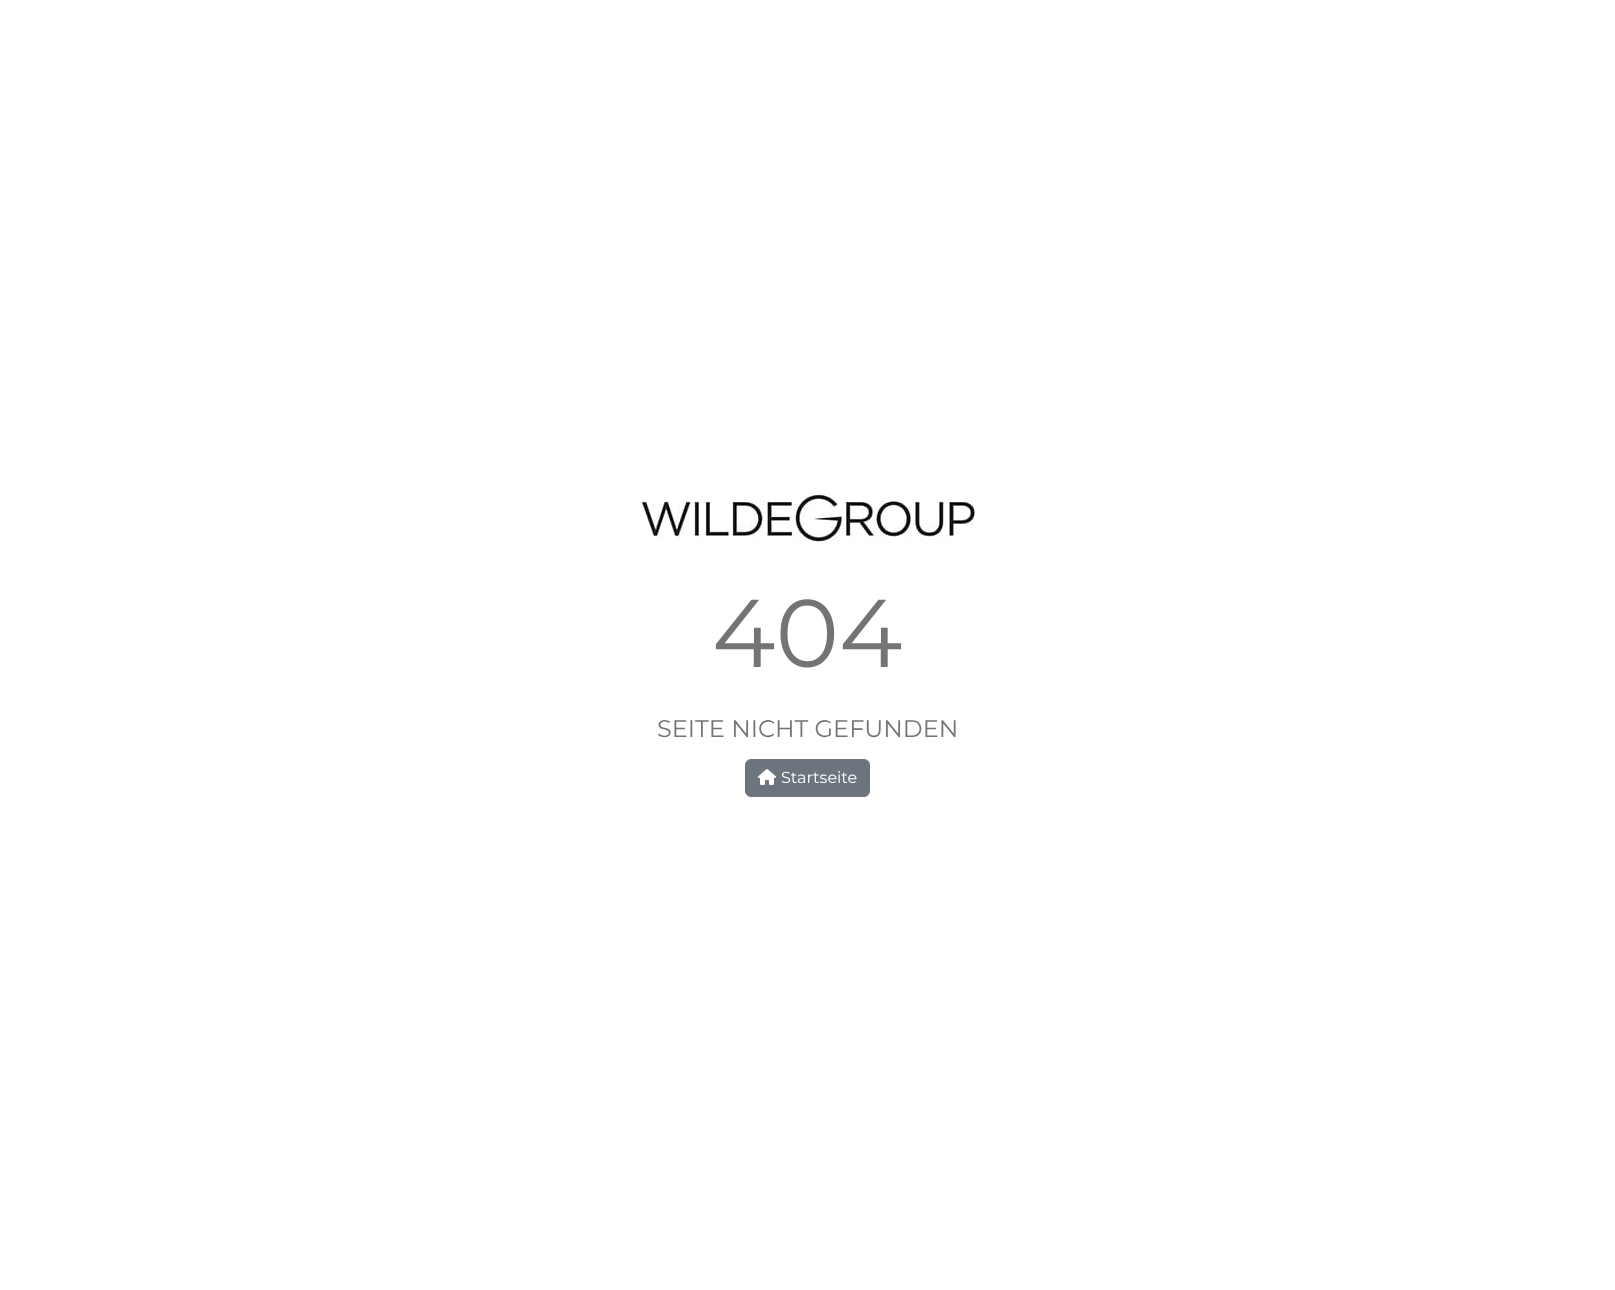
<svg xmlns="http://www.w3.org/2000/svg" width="1615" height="1290">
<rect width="100%" height="100%" fill="#fff"/>
<image x="638" y="493" width="339" height="50" href="media/1.png"/>
<text x="712" y="667" style="font-family:Montserrat;font-size:96px;fill:#747474">404</text>
<text x="657" y="737" style="font-family:Montserrat;font-size:24px;fill:#747474">SEITE NICHT GEFUNDEN</text>
<rect x="745.5" y="759.5" width="124" height="37" rx="5.5" fill="#6c757d" stroke="#6c757d"/>
<image x="758" y="769" width="18" height="16" href="media/2.png"/>
<text x="781" y="783" style="font-family:Montserrat;font-size:16px;fill:#fff">Startseite</text>
</svg>
